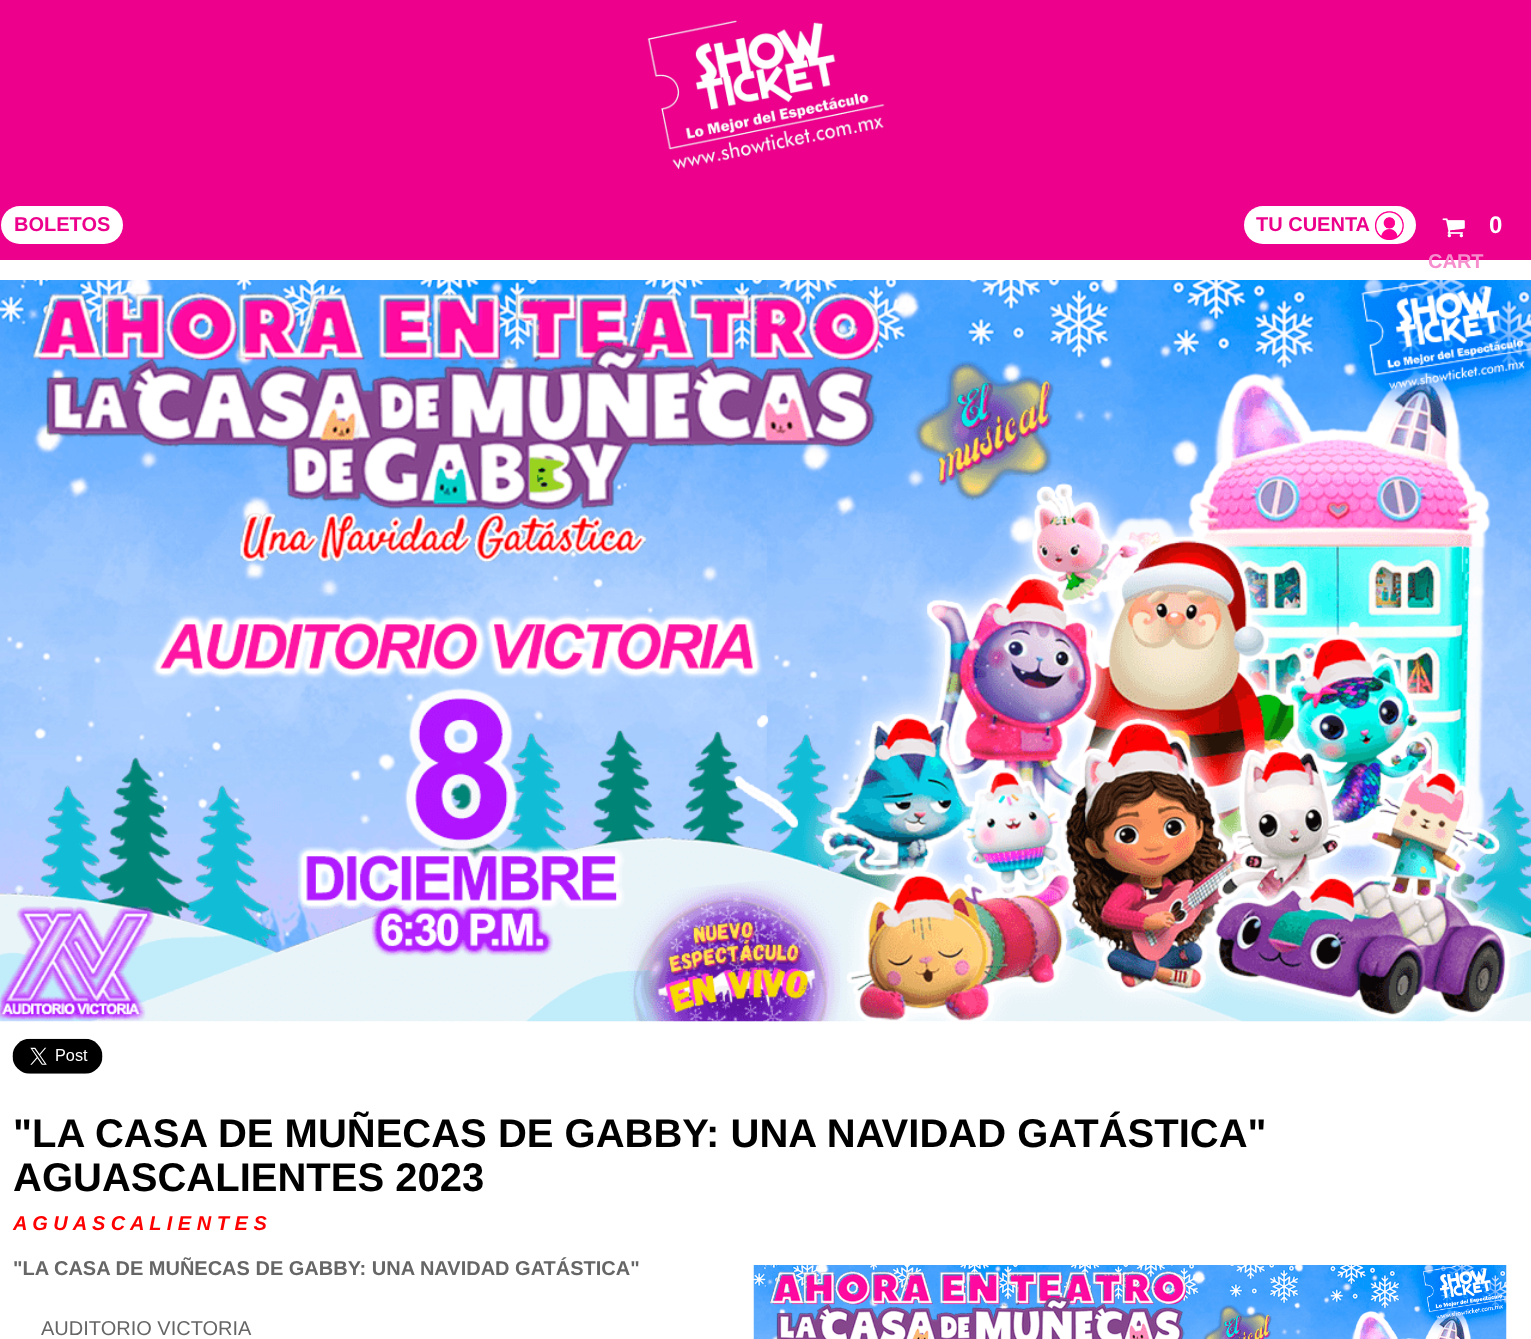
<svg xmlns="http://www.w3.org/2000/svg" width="1531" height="1339">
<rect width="100%" height="100%" fill="#fff"/>
<rect width="1531" height="260" fill="#ec008c"/>
<image x="647" y="20" width="238" height="150" href="media/1.png"/>
<rect x="1" y="206" width="122" height="38" rx="19" fill="#fff"/>
<text x="14" y="231" style="font-family:Liberation Sans;font-size:20px;font-weight:bold;fill:#ec008c">BOLETOS</text>
<rect x="1244" y="206" width="172" height="38" rx="19" fill="#fff"/>
<text x="1256" y="231" style="font-family:Liberation Sans;font-size:20px;font-weight:bold;fill:#ec008c">TU CUENTA</text>
<image x="1375" y="211" width="29" height="29" href="media/2.png"/>
<image x="1442" y="218" width="23" height="20" href="media/3.png"/>
<text x="1489" y="233" style="font-family:Liberation Sans;font-size:24px;font-weight:bold;fill:#fff">0</text>
<text x="1428" y="268" style="font-family:Liberation Sans;font-size:20px;font-weight:bold;fill:#f68dcc">CART</text>
<image x="0" y="280" width="1531" height="742" href="media/4.png"/>
<image x="12" y="1038" width="91" height="36" href="media/5.png"/>
<text x="13" y="1147" style="font-family:Liberation Sans;font-size:40px;font-weight:bold;fill:#000">"LA CASA DE MUÑECAS DE GABBY: UNA NAVIDAD GATÁSTICA"</text>
<text x="13" y="1191" style="font-family:Liberation Sans;font-size:40px;font-weight:bold;fill:#000">AGUASCALIENTES 2023</text>
<text x="13" y="1230" style="font-family:Liberation Sans;font-size:20px;font-weight:bold;font-style:italic;fill:#f00">A G U A S C A L I E N T E S</text>
<text x="13" y="1275" style="font-family:Liberation Sans;font-size:20px;font-weight:bold;fill:#666">"LA CASA DE MUÑECAS DE GABBY: UNA NAVIDAD GATÁSTICA"</text>
<text x="41" y="1335" style="font-family:Liberation Sans;font-size:20px;fill:#666">AUDITORIO VICTORIA</text>
<image x="753" y="1265" width="754" height="74" href="media/6.png"/>
</svg>
